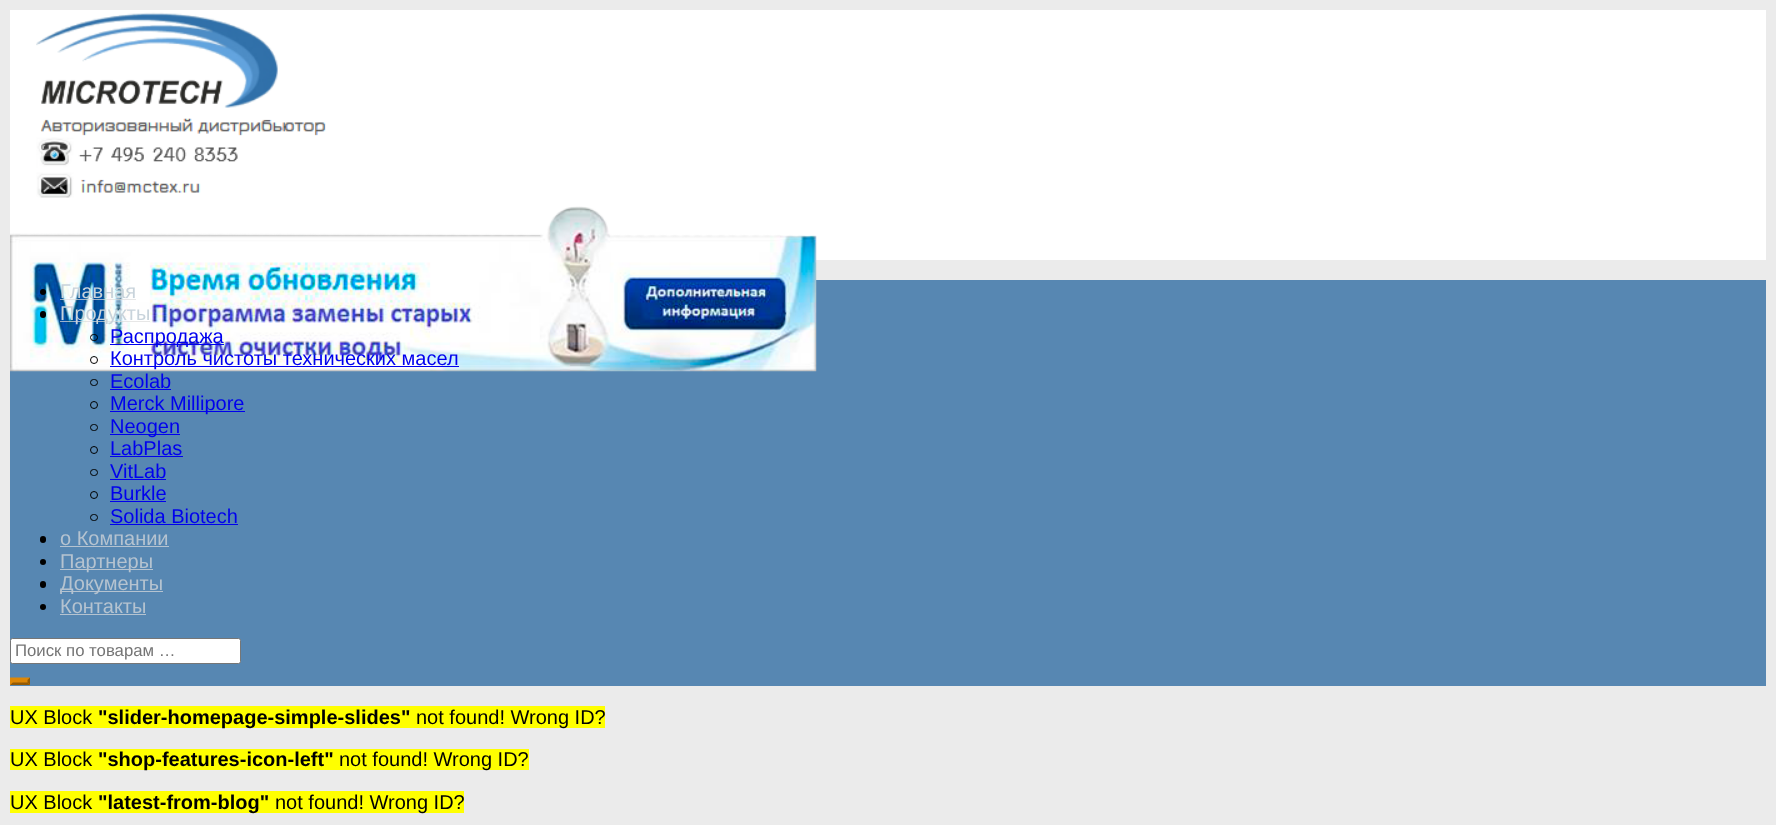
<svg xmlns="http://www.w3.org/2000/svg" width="1776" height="825">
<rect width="100%" height="100%" fill="#ebebeb"/>
<rect x="10" y="10" width="1756" height="250" fill="#fff"/>
<image x="36" y="12" width="290" height="186" href="media/1.png"/>
<rect x="10" y="280" width="1756" height="406" fill="#5787b2"/>
<image x="10" y="206" width="807" height="166" href="media/2.png"/>
<circle cx="43" cy="292" r="3" fill="#000"/>
<text x="60" y="298" style="font-family:Liberation Sans;font-size:20px;fill:#c8d3db">Главная</text>
<rect x="60" y="299" width="76" height="1" fill="#ddddddb3"/>
<rect x="40" y="311" width="6" height="7" rx="3" fill="#000"/>
<rect x="60" y="321" width="90" height="1" fill="#ddddddb3"/>
<text x="60" y="320" style="font-family:Liberation Sans;font-size:20px;fill:#c8d3db">Продукты</text>
<rect x="90.5" y="334.5" width="7" height="6" rx="3" fill="none" stroke="#000"/>
<rect x="110" y="344" width="114" height="1" fill="#00e"/>
<text x="110" y="343" style="font-family:Liberation Sans;font-size:20px;fill:#00e">Распродажа</text>
<circle cx="94" cy="360" r="3.5" fill="none" stroke="#000"/>
<rect x="110" y="366" width="349" height="1" fill="#00e"/>
<text x="110" y="365" style="font-family:Liberation Sans;font-size:20px;fill:#00e">Контроль чистоты технических масел</text>
<rect x="90.5" y="379.5" width="7" height="6" rx="3" fill="none" stroke="#000"/>
<text x="110" y="388" style="font-family:Liberation Sans;font-size:20px;fill:#00e">Ecolab</text>
<rect x="110" y="389" width="61" height="1" fill="#00e"/>
<circle cx="94" cy="405" r="3.5" fill="none" stroke="#000"/>
<rect x="110" y="411" width="135" height="1" fill="#00e"/>
<text x="110" y="410" style="font-family:Liberation Sans;font-size:20px;fill:#00e">Merck Millipore</text>
<rect x="90.5" y="424.5" width="7" height="6" rx="3" fill="none" stroke="#000"/>
<rect x="110" y="434" width="70" height="1" fill="#00e"/>
<text x="110" y="433" style="font-family:Liberation Sans;font-size:20px;fill:#00e">Neogen</text>
<circle cx="94" cy="450" r="3.5" fill="none" stroke="#000"/>
<text x="110" y="455" style="font-family:Liberation Sans;font-size:20px;fill:#00e">LabPlas</text>
<rect x="110" y="456" width="73" height="1" fill="#00e"/>
<rect x="90.5" y="469.5" width="7" height="6" rx="3" fill="none" stroke="#000"/>
<text x="110" y="478" style="font-family:Liberation Sans;font-size:20px;fill:#00e">VitLab</text>
<rect x="110" y="479" width="56" height="1" fill="#00e"/>
<circle cx="94" cy="495" r="3.5" fill="none" stroke="#000"/>
<text x="110" y="500" style="font-family:Liberation Sans;font-size:20px;fill:#00e">Burkle</text>
<rect x="110" y="501" width="56" height="1" fill="#00e"/>
<rect x="90.5" y="514.5" width="7" height="6" rx="3" fill="none" stroke="#000"/>
<text x="110" y="523" style="font-family:Liberation Sans;font-size:20px;fill:#00e">Solida Biotech</text>
<rect x="110" y="524" width="128" height="1" fill="#00e"/>
<rect x="40" y="536" width="6" height="7" rx="3" fill="#000"/>
<text x="60" y="545" style="font-family:Liberation Sans;font-size:20px;fill:#b5c3d0">о Компании</text>
<rect x="60" y="546" width="109" height="1" fill="#b5c3d0"/>
<circle cx="43" cy="562" r="3" fill="#000"/>
<rect x="60" y="569" width="93" height="1" fill="#b5c3d0"/>
<text x="60" y="568" style="font-family:Liberation Sans;font-size:20px;fill:#b5c3d0">Партнеры</text>
<rect x="40" y="581" width="6" height="7" rx="3" fill="#000"/>
<rect x="60" y="591" width="103" height="1" fill="#b5c3d0"/>
<text x="60" y="590" style="font-family:Liberation Sans;font-size:20px;fill:#b5c3d0">Документы</text>
<circle cx="43" cy="607" r="3" fill="#000"/>
<text x="60" y="613" style="font-family:Liberation Sans;font-size:20px;fill:#b5c3d0">Контакты</text>
<rect x="60" y="614" width="86" height="1" fill="#b5c3d0"/>
<rect x="10.5" y="638.5" width="230" height="25" rx="2" fill="#fff" stroke="#767676"/>
<text x="15" y="656" style="font-family:Liberation Sans;font-size:16.75px;fill:#757575">Поиск по товарам …</text>
<rect x="10" y="678" width="20" height="7" fill="#dd8706"/>
<path d="M10 677.5h20l-2.5 2.5h-15z" fill="#dd8706"/>
<path d="M30 677.5v7.5l-2.5-2.5v-2.5z" fill="#935a04"/>
<path d="M30 685h-20l2.5-2.5h15z" fill="#935a04"/>
<path d="M10 685v-7.5l2.5 2.5v2.5z" fill="#dd8706"/>
<rect x="10" y="706" width="595" height="22" fill="#ff0"/>
<text x="10" y="724" style="font-family:Liberation Sans;font-size:20px;fill:#000">UX Block</text>
<text x="98" y="724" style="font-family:Liberation Sans;font-size:20px;font-weight:bold;fill:#000">"slider-homepage-simple-slides"</text>
<text x="416" y="724" style="font-family:Liberation Sans;font-size:20px;fill:#000">not found! Wrong ID?</text>
<rect x="10" y="749" width="519" height="21" fill="#ff0"/>
<text x="10" y="766" style="font-family:Liberation Sans;font-size:20px;fill:#000">UX Block</text>
<text x="98" y="766" style="font-family:Liberation Sans;font-size:20px;font-weight:bold;fill:#000">"shop-features-icon-left"</text>
<text x="339" y="766" style="font-family:Liberation Sans;font-size:20px;fill:#000">not found! Wrong ID?</text>
<rect x="10" y="791" width="454" height="22" fill="#ff0"/>
<text x="10" y="809" style="font-family:Liberation Sans;font-size:20px;fill:#000">UX Block</text>
<text x="98" y="809" style="font-family:Liberation Sans;font-size:20px;font-weight:bold;fill:#000">"latest-from-blog"</text>
<text x="275" y="809" style="font-family:Liberation Sans;font-size:20px;fill:#000">not found! Wrong ID?</text>
</svg>
